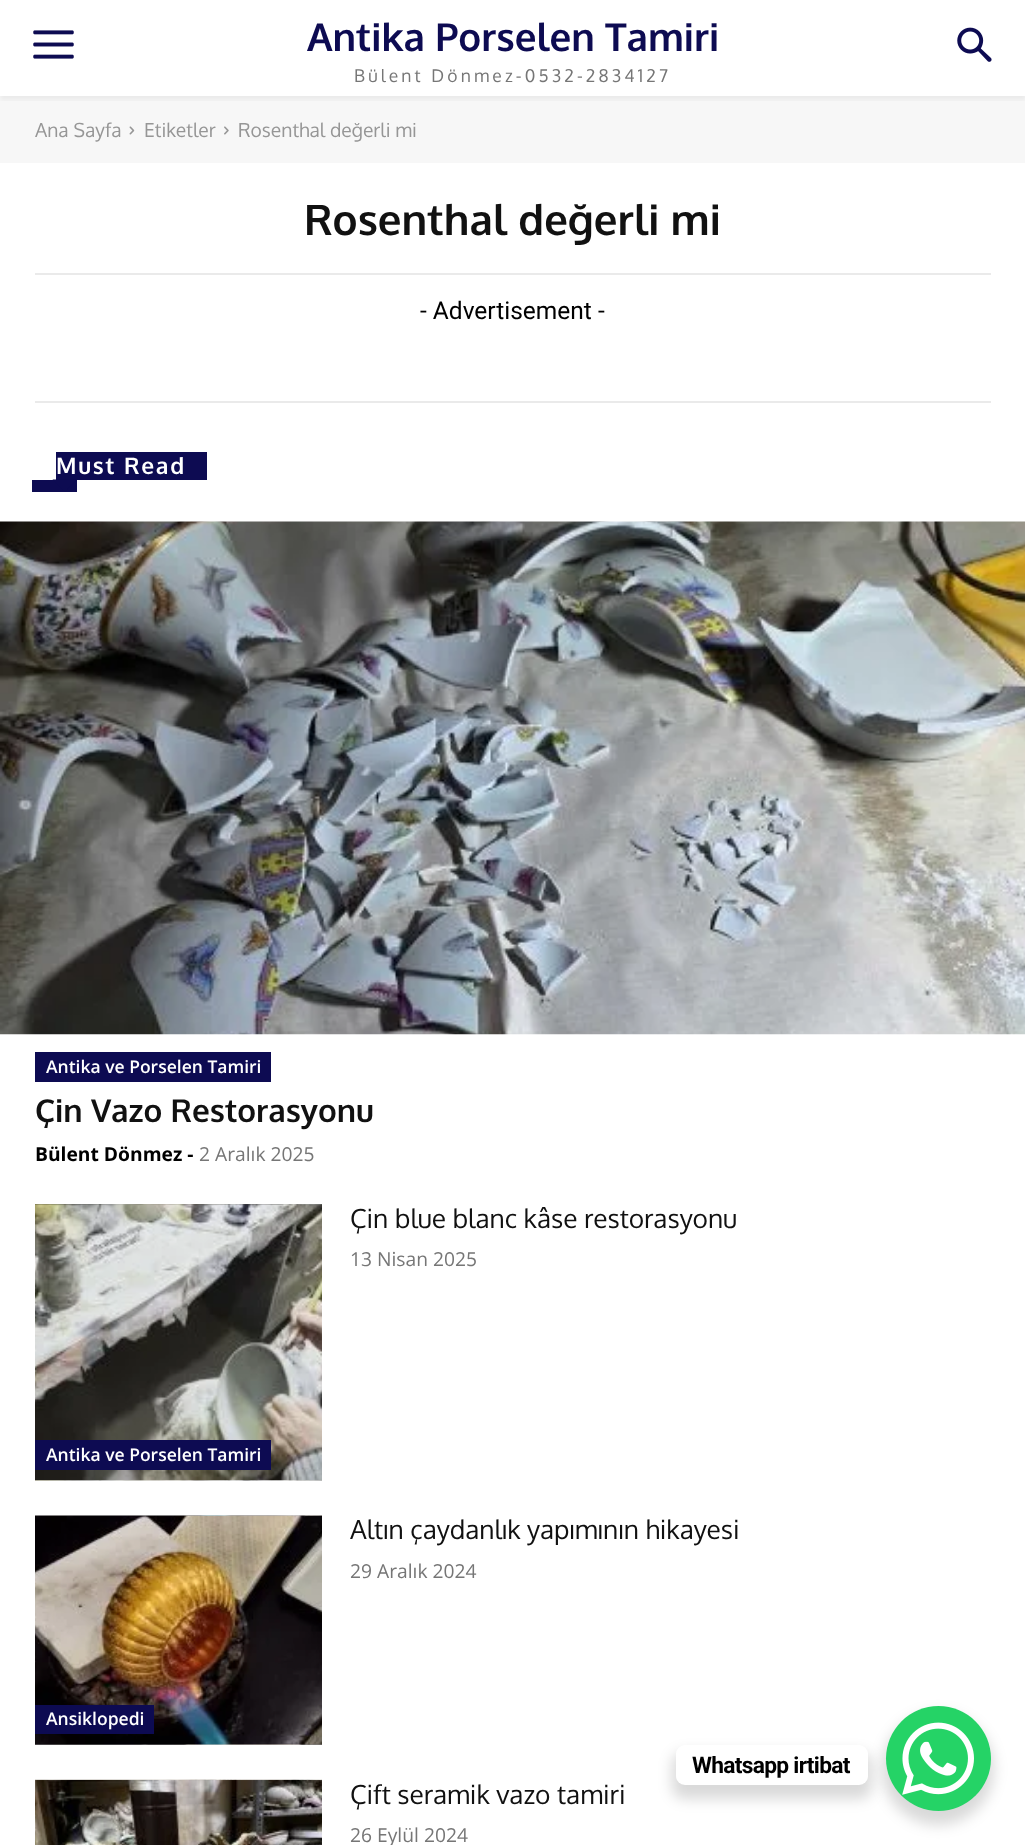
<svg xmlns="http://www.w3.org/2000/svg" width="1025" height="1845">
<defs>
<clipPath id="clip1"><rect x="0" y="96" width="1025" height="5"/></clipPath>
</defs>
<rect width="100%" height="100%" fill="#fff"/>
<image x="33" y="30" width="41" height="29" href="media/1.png"/>
<image x="957" y="27" width="35" height="35" href="media/2.png"/>
<rect y="96" width="1025" height="67" fill="#f7f7f7"/>
<g clip-path="url(#clip1)">
<rect y="4" width="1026" height="96" fill="#0000000d" filter="blur(2.5px)"/>
</g>
<text x="307" y="51" style="font-family:Oxygen;font-size:38.5px;font-weight:bold;fill:#0d0b52">Antika Porselen Tamiri</text>
<text x="354" y="82" style="font-family:Oxygen;font-size:17.5px;letter-spacing:3.15px;fill:#767676">Bülent Dönmez-0532-2834127</text>
<text x="35" y="137" style="font-family:Oxygen;font-size:19.25px;fill:#969696">Ana Sayfa</text>
<image x="129" y="126" width="6" height="9" href="media/3.png"/>
<text x="144" y="137" style="font-family:Oxygen;font-size:19.25px;fill:#969696">Etiketler</text>
<image x="224" y="126" width="5" height="9" href="media/4.png"/>
<text x="238" y="137" style="font-family:Oxygen;font-size:19.25px;fill:#969696">Rosenthal değerli mi</text>
<text x="304" y="235" style="font-family:Oxygen;font-size:42px;font-weight:bold;fill:#111">Rosenthal değerli mi</text>
<rect x="35" y="273" width="956" height="2" fill="#eaeaea"/>
<rect x="35" y="401" width="956" height="2" fill="#eaeaea"/>
<text x="420" y="319" style="font-family:Roboto;font-size:24.5px;fill:#000">- Advertisement -</text>
<rect x="32" y="480" width="45" height="12" fill="#0d0b52"/>
<rect x="56" y="452" width="151" height="28" fill="#0d0b52"/>
<text x="56" y="474" style="font-family:Oxygen;font-size:22.75px;font-weight:bold;letter-spacing:1.75px;fill:#fff">Must Read</text>
<path d="M52.5 479.5h24.5l-12 12.5z" fill="#0d0b52"/>
<image x="0" y="521" width="1025" height="514" href="media/5.png"/>
<rect x="35" y="1052" width="236" height="30" fill="#0d0b52"/>
<text x="46" y="1073" style="font-family:Open Sans;font-size:17.5px;font-weight:600;fill:#fff">Antika ve Porselen Tamiri</text>
<text x="35" y="1122" style="font-family:Oxygen;font-size:31.5px;font-weight:bold;fill:#111">Çin Vazo Restorasyonu</text>
<text x="35" y="1161" style="font-family:Open Sans;font-size:19.25px;font-weight:bold;fill:#000">Bülent Dönmez -</text>
<text x="199" y="1161" style="font-family:Open Sans;font-size:19.25px;fill:#767676">2 Aralık 2025</text>
<text x="350" y="1228" style="font-family:Oxygen;font-size:26.25px;fill:#111">Çin blue blanc kâse restorasyonu</text>
<text x="350" y="1266" style="font-family:Open Sans;font-size:19.25px;fill:#767676">13 Nisan 2025</text>
<image x="35" y="1204" width="287" height="277" href="media/6.png"/>
<rect x="35" y="1440" width="236" height="30" fill="#0d0b52"/>
<text x="46" y="1461" style="font-family:Open Sans;font-size:17.5px;font-weight:600;fill:#fff">Antika ve Porselen Tamiri</text>
<text x="350" y="1539" style="font-family:Oxygen;font-size:26.25px;fill:#111">Altın çaydanlık yapımının hikayesi</text>
<text x="350" y="1578" style="font-family:Open Sans;font-size:19.25px;fill:#767676">29 Aralık 2024</text>
<image x="35" y="1515" width="287" height="230" href="media/7.png"/>
<rect x="35" y="1705" width="119" height="29" fill="#0d0b52"/>
<text x="46" y="1725" style="font-family:Open Sans;font-size:17.5px;font-weight:600;fill:#fff">Ansiklopedi</text>
<image x="35" y="1779" width="287" height="66" href="media/8.png"/>
<text x="350" y="1804" style="font-family:Oxygen;font-size:26.25px;fill:#111">Çift seramik vazo tamiri</text>
<text x="350" y="1842" style="font-family:Open Sans;font-size:19.25px;fill:#767676">26 Eylül 2024</text>
<rect x="882" y="1713" width="112" height="112" rx="56" fill="#00000026" filter="blur(7px)"/>
<circle cx="938.5" cy="1758.5" r="52.5" fill="#25d366"/>
<rect x="672" y="1752" width="200" height="47" rx="12" fill="#00000026" filter="blur(7px)"/>
<rect x="676" y="1745" width="192" height="40" rx="9" fill="#fff"/>
<text x="692" y="1773" style="font-family:Roboto;font-size:22.75px;font-weight:bold;letter-spacing:-0.7px;fill:#000">Whatsapp irtibat</text>
<image x="902" y="1722" width="72" height="73" href="media/9.png"/>
</svg>
